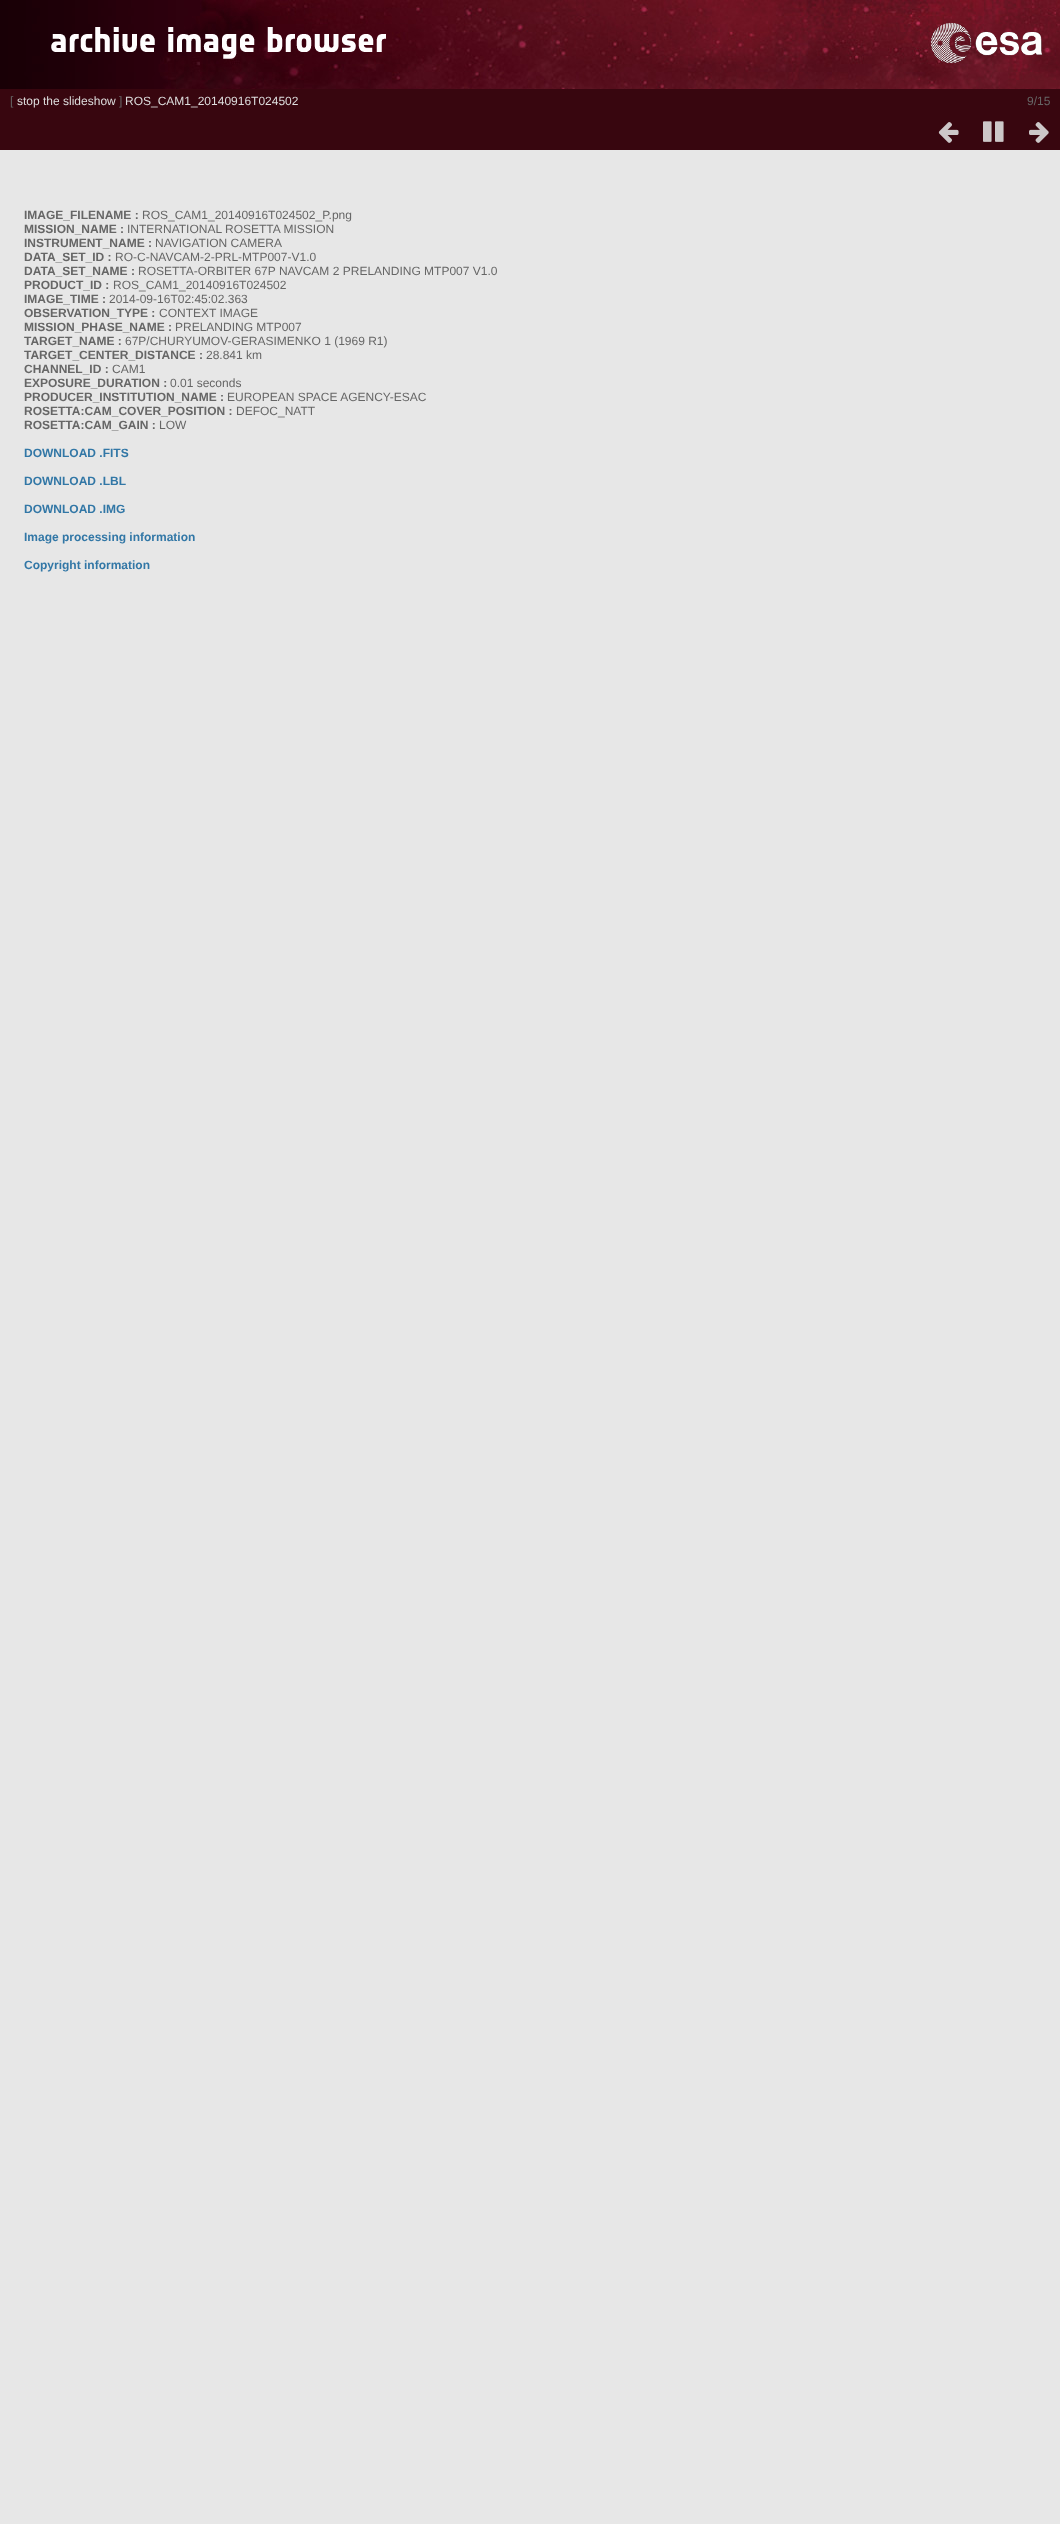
<svg xmlns="http://www.w3.org/2000/svg" width="1060" height="2524">
<rect width="100%" height="100%" fill="#e7e7e7"/>
<image x="0" y="0" width="1060" height="89" href="media/1.png"/>
<image x="51" y="27" width="335" height="32" href="media/2.png"/>
<image x="930" y="22" width="113" height="42" href="media/3.png"/>
<rect y="89" width="1060" height="61" fill="#38060f"/>
<text x="10" y="105" style="font-family:Liberation Sans;font-size:12px;fill:#666">[</text>
<text x="17" y="105" style="font-family:Liberation Sans;font-size:12px;fill:#ddd">stop the slideshow</text>
<text x="119" y="105" style="font-family:Liberation Sans;font-size:12px;fill:#666">]</text>
<text x="125" y="105" style="font-family:Liberation Sans;font-size:12px;fill:#ddd">ROS_CAM1_20140916T024502</text>
<text x="1027" y="105" style="font-family:Liberation Sans;font-size:12px;fill:#666">9/15</text>
<image x="938" y="122" width="21" height="21" href="media/4.png"/>
<image x="983" y="121" width="21" height="21" href="media/5.png"/>
<image x="1029" y="122" width="20" height="21" href="media/6.png"/>
<text x="24" y="219" style="font-family:Liberation Sans;font-size:12px;font-weight:bold;fill:#666">IMAGE_FILENAME :</text>
<text x="142" y="219" style="font-family:Liberation Sans;font-size:12px;fill:#666">ROS_CAM1_20140916T024502_P.png</text>
<text x="24" y="233" style="font-family:Liberation Sans;font-size:12px;font-weight:bold;fill:#666">MISSION_NAME :</text>
<text x="127" y="233" style="font-family:Liberation Sans;font-size:12px;fill:#666">INTERNATIONAL ROSETTA MISSION</text>
<text x="24" y="247" style="font-family:Liberation Sans;font-size:12px;font-weight:bold;fill:#666">INSTRUMENT_NAME :</text>
<text x="155" y="247" style="font-family:Liberation Sans;font-size:12px;fill:#666">NAVIGATION CAMERA</text>
<text x="24" y="261" style="font-family:Liberation Sans;font-size:12px;font-weight:bold;fill:#666">DATA_SET_ID :</text>
<text x="115" y="261" style="font-family:Liberation Sans;font-size:12px;fill:#666">RO-C-NAVCAM-2-PRL-MTP007-V1.0</text>
<text x="24" y="275" style="font-family:Liberation Sans;font-size:12px;font-weight:bold;fill:#666">DATA_SET_NAME :</text>
<text x="138" y="275" style="font-family:Liberation Sans;font-size:12px;fill:#666">ROSETTA-ORBITER 67P NAVCAM 2 PRELANDING MTP007 V1.0</text>
<text x="24" y="289" style="font-family:Liberation Sans;font-size:12px;font-weight:bold;fill:#666">PRODUCT_ID :</text>
<text x="113" y="289" style="font-family:Liberation Sans;font-size:12px;fill:#666">ROS_CAM1_20140916T024502</text>
<text x="24" y="303" style="font-family:Liberation Sans;font-size:12px;font-weight:bold;fill:#666">IMAGE_TIME :</text>
<text x="109" y="303" style="font-family:Liberation Sans;font-size:12px;fill:#666">2014-09-16T02:45:02.363</text>
<text x="24" y="317" style="font-family:Liberation Sans;font-size:12px;font-weight:bold;fill:#666">OBSERVATION_TYPE :</text>
<text x="159" y="317" style="font-family:Liberation Sans;font-size:12px;fill:#666">CONTEXT IMAGE</text>
<text x="24" y="331" style="font-family:Liberation Sans;font-size:12px;font-weight:bold;fill:#666">MISSION_PHASE_NAME :</text>
<text x="175" y="331" style="font-family:Liberation Sans;font-size:12px;fill:#666">PRELANDING MTP007</text>
<text x="24" y="345" style="font-family:Liberation Sans;font-size:12px;font-weight:bold;fill:#666">TARGET_NAME :</text>
<text x="125" y="345" style="font-family:Liberation Sans;font-size:12px;fill:#666">67P/CHURYUMOV-GERASIMENKO 1 (1969 R1)</text>
<text x="24" y="359" style="font-family:Liberation Sans;font-size:12px;font-weight:bold;fill:#666">TARGET_CENTER_DISTANCE :</text>
<text x="206" y="359" style="font-family:Liberation Sans;font-size:12px;fill:#666">28.841 km</text>
<text x="24" y="373" style="font-family:Liberation Sans;font-size:12px;font-weight:bold;fill:#666">CHANNEL_ID :</text>
<text x="112" y="373" style="font-family:Liberation Sans;font-size:12px;fill:#666">CAM1</text>
<text x="24" y="387" style="font-family:Liberation Sans;font-size:12px;font-weight:bold;fill:#666">EXPOSURE_DURATION :</text>
<text x="170" y="387" style="font-family:Liberation Sans;font-size:12px;fill:#666">0.01 seconds</text>
<text x="24" y="401" style="font-family:Liberation Sans;font-size:12px;font-weight:bold;fill:#666">PRODUCER_INSTITUTION_NAME :</text>
<text x="227" y="401" style="font-family:Liberation Sans;font-size:12px;fill:#666">EUROPEAN SPACE AGENCY-ESAC</text>
<text x="24" y="415" style="font-family:Liberation Sans;font-size:12px;font-weight:bold;fill:#666">ROSETTA:CAM_COVER_POSITION :</text>
<text x="236" y="415" style="font-family:Liberation Sans;font-size:12px;fill:#666">DEFOC_NATT</text>
<text x="24" y="429" style="font-family:Liberation Sans;font-size:12px;font-weight:bold;fill:#666">ROSETTA:CAM_GAIN :</text>
<text x="159" y="429" style="font-family:Liberation Sans;font-size:12px;fill:#666">LOW</text>
<text x="24" y="457" style="font-family:Liberation Sans;font-size:12px;font-weight:bold;fill:#3277a6">DOWNLOAD .FITS</text>
<text x="24" y="485" style="font-family:Liberation Sans;font-size:12px;font-weight:bold;fill:#3277a6">DOWNLOAD .LBL</text>
<text x="24" y="513" style="font-family:Liberation Sans;font-size:12px;font-weight:bold;fill:#3277a6">DOWNLOAD .IMG</text>
<text x="24" y="541" style="font-family:Liberation Sans;font-size:12px;font-weight:bold;fill:#3277a6">Image processing information</text>
<text x="24" y="569" style="font-family:Liberation Sans;font-size:12px;font-weight:bold;fill:#3277a6">Copyright information</text>
</svg>
